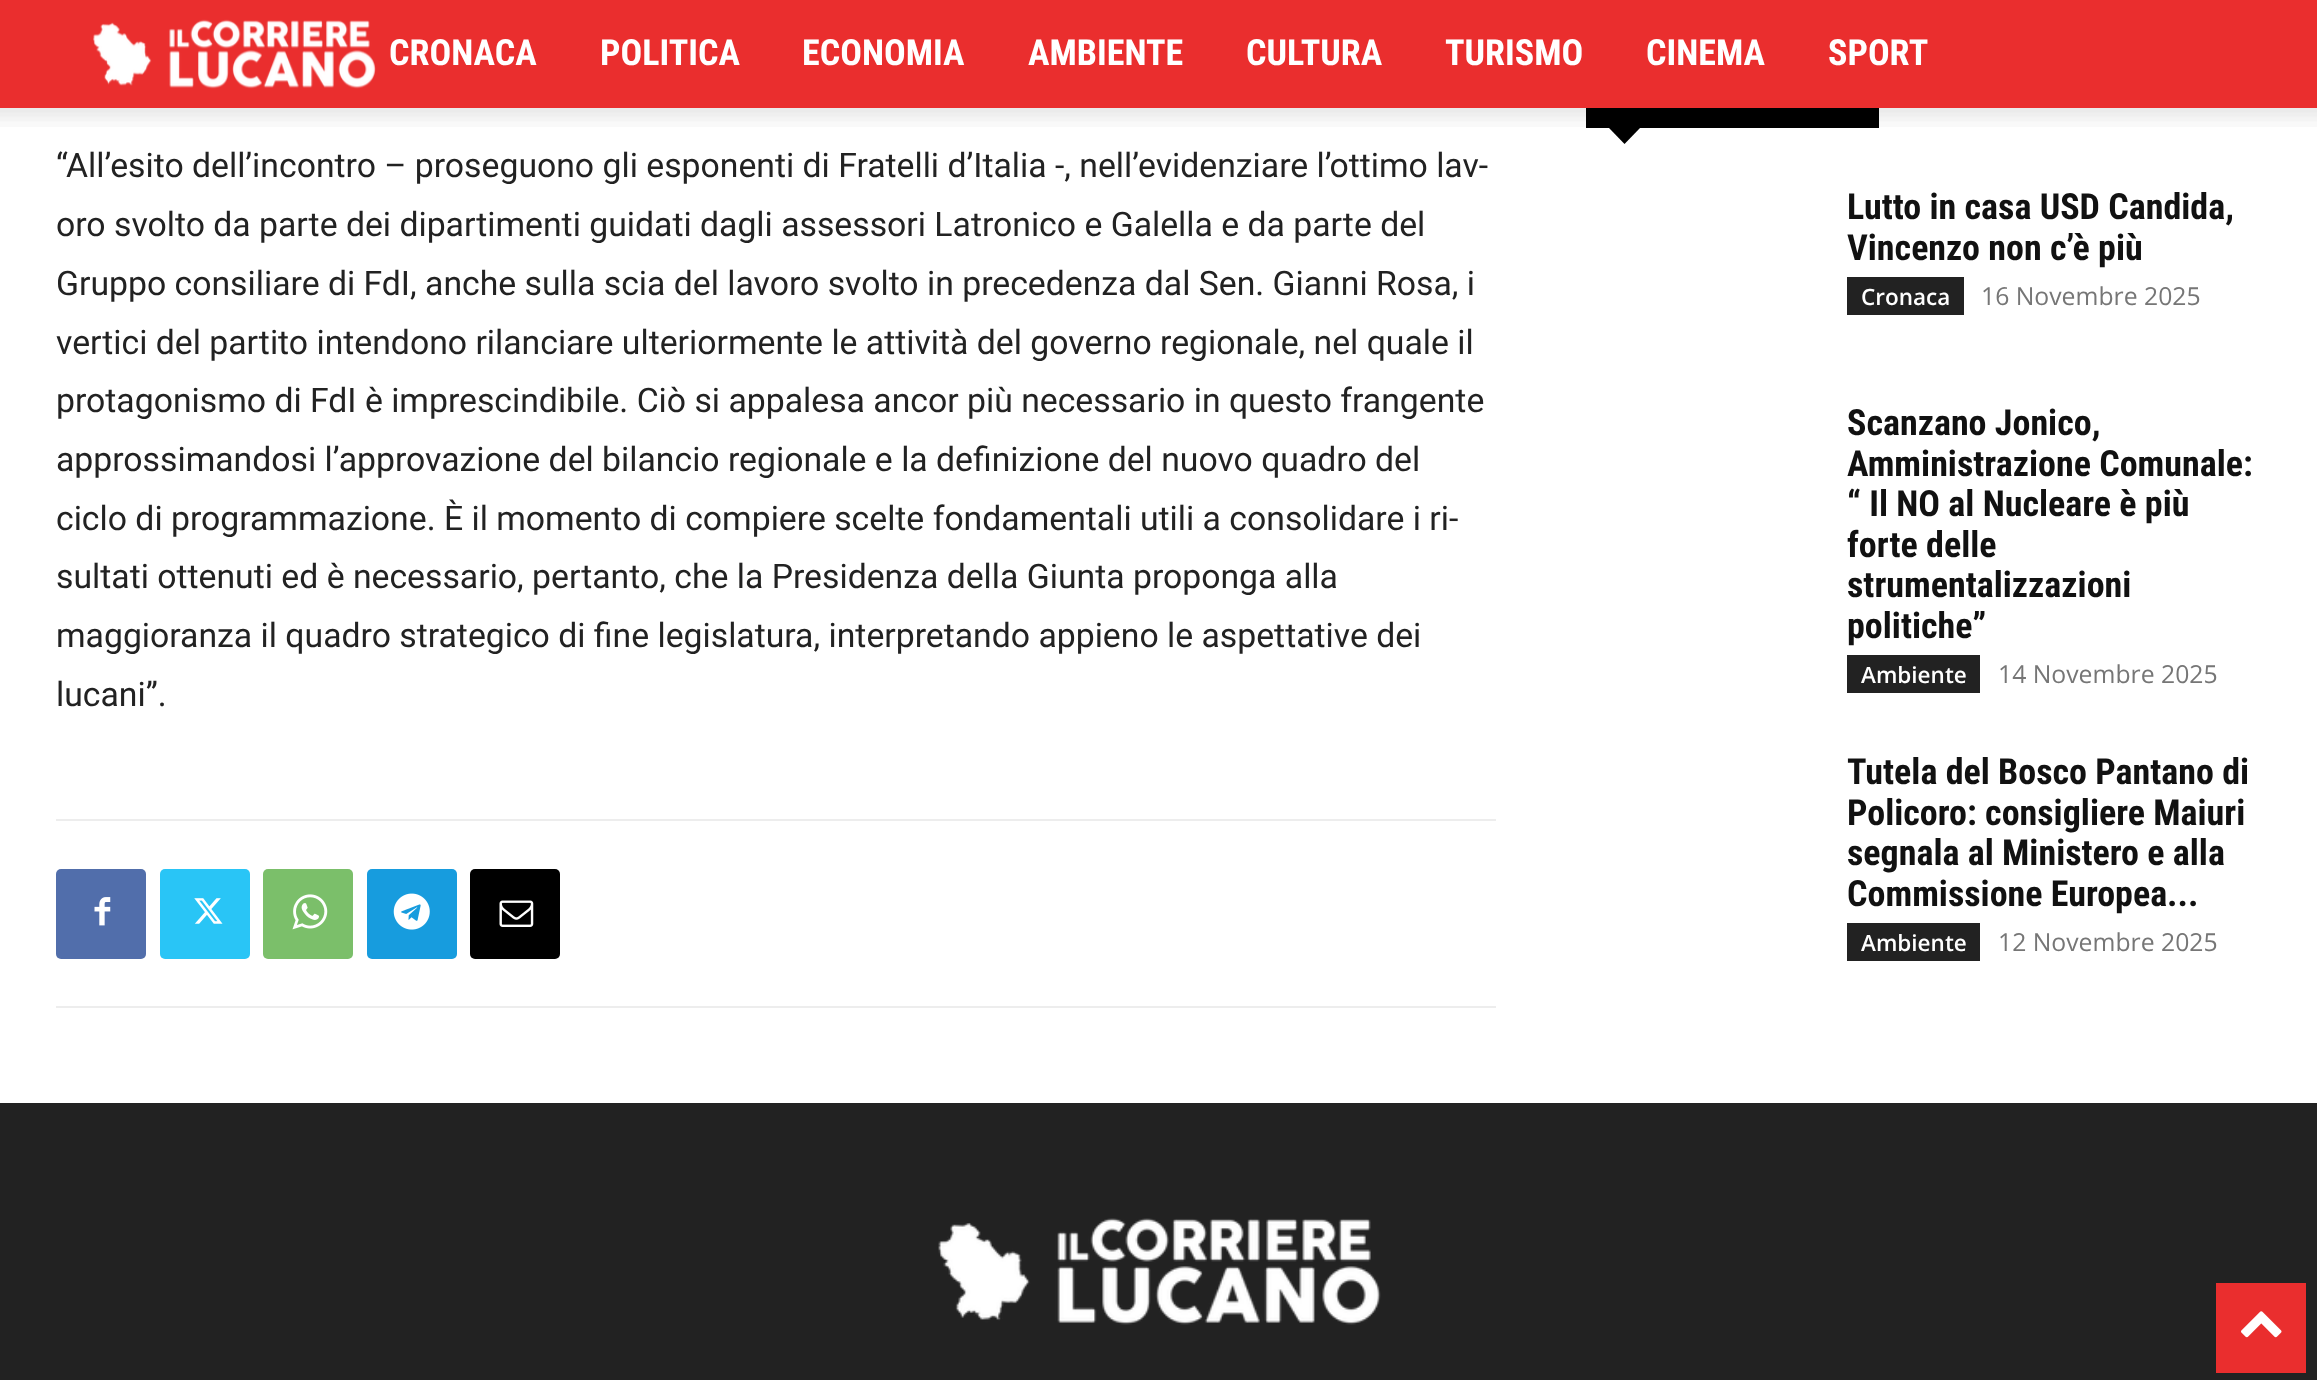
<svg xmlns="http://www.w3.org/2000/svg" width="2317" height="1380">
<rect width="100%" height="100%" fill="#fff"/>
<rect width="2317" height="108" fill="#ea2e2e"/>
<image x="93" y="19" width="283" height="70" href="media/1.png"/>
<text x="389" y="65" style="font-family:Roboto Condensed;font-size:36px;font-weight:bold;fill:#fff">CRONACA</text>
<text x="600" y="65" style="font-family:Roboto Condensed;font-size:36px;font-weight:bold;fill:#fff">POLITICA</text>
<text x="802" y="65" style="font-family:Roboto Condensed;font-size:36px;font-weight:bold;fill:#fff">ECONOMIA</text>
<text x="1028" y="65" style="font-family:Roboto Condensed;font-size:36px;font-weight:bold;fill:#fff">AMBIENTE</text>
<text x="1246" y="65" style="font-family:Roboto Condensed;font-size:36px;font-weight:bold;fill:#fff">CULTURA</text>
<text x="1445" y="65" style="font-family:Roboto Condensed;font-size:36px;font-weight:bold;fill:#fff">TURISMO</text>
<text x="1646" y="65" style="font-family:Roboto Condensed;font-size:36px;font-weight:bold;fill:#fff">CINEMA</text>
<text x="1828" y="65" style="font-family:Roboto Condensed;font-size:36px;font-weight:bold;fill:#fff">SPORT</text>
<rect x="1586" y="108" width="293" height="20" fill="#000"/>
<image x="0" y="108" width="2317" height="19" href="media/2.png"/>
<text x="56" y="177" style="font-family:Roboto;font-size:33.75px;fill:#222">“All’esito dell’incontro – proseguono gli esponenti di Fratelli d’Italia -, nell’evidenziare l’ottimo lav-</text>
<text x="56" y="236" style="font-family:Roboto;font-size:33.75px;fill:#222">oro svolto da parte dei dipartimenti guidati dagli assessori Latronico e Galella e da parte del</text>
<text x="56" y="295" style="font-family:Roboto;font-size:33.75px;fill:#222">Gruppo consiliare di FdI, anche sulla scia del lavoro svolto in precedenza dal Sen. Gianni Rosa, i</text>
<text x="56" y="354" style="font-family:Roboto;font-size:33.75px;fill:#222">vertici del partito intendono rilanciare ulteriormente le attività del governo regionale, nel quale il</text>
<text x="56" y="412" style="font-family:Roboto;font-size:33.75px;fill:#222">protagonismo di FdI è imprescindibile. Ciò si appalesa ancor più necessario in questo frangente</text>
<text x="56" y="471" style="font-family:Roboto;font-size:33.75px;fill:#222">approssimandosi l’approvazione del bilancio regionale e la definizione del nuovo quadro del</text>
<text x="56" y="530" style="font-family:Roboto;font-size:33.75px;fill:#222">ciclo di programmazione. È il momento di compiere scelte fondamentali utili a consolidare i ri-</text>
<text x="56" y="588" style="font-family:Roboto;font-size:33.75px;fill:#222">sultati ottenuti ed è necessario, pertanto, che la Presidenza della Giunta proponga alla</text>
<text x="56" y="647" style="font-family:Roboto;font-size:33.75px;fill:#222">maggioranza il quadro strategico di fine legislatura, interpretando appieno le aspettative dei</text>
<text x="56" y="706" style="font-family:Roboto;font-size:33.75px;fill:#222">lucani”.</text>
<rect x="56" y="819" width="1440" height="2" fill="#ededed"/>
<rect x="56" y="1006" width="1440" height="2" fill="#ededed"/>
<rect x="56" y="869" width="90" height="90" rx="5" fill="#516eab"/>
<image x="94" y="897" width="17" height="29" href="media/3.png"/>
<rect x="160" y="869" width="90" height="90" rx="5" fill="#29c5f6"/>
<image x="194" y="898" width="29" height="26" href="media/4.png"/>
<rect x="263" y="869" width="90" height="90" rx="5" fill="#7bbf6a"/>
<image x="292" y="894" width="36" height="36" href="media/5.png"/>
<rect x="367" y="869" width="90" height="90" rx="5" fill="#179cde"/>
<image x="393" y="893" width="37" height="37" href="media/6.png"/>
<rect x="470" y="869" width="90" height="90" rx="5" fill="#000"/>
<image x="499" y="900" width="35" height="27" href="media/7.png"/>
<path d="M1609 128h31l-15.5 16z" fill="#000"/>
<text x="1847" y="219" style="font-family:Roboto Condensed;font-size:36px;font-weight:bold;fill:#111">Lutto in casa USD Candida,</text>
<text x="1847" y="260" style="font-family:Roboto Condensed;font-size:36px;font-weight:bold;fill:#111">Vincenzo non c’è più</text>
<rect x="1847" y="277" width="117" height="38" fill="#222"/>
<text x="1861" y="305" style="font-family:Open Sans;font-size:22.5px;font-weight:600;fill:#fff">Cronaca</text>
<text x="1981" y="305" style="font-family:Open Sans;font-size:24.75px;fill:#767676">16 Novembre 2025</text>
<text x="1847" y="435" style="font-family:Roboto Condensed;font-size:36px;font-weight:bold;fill:#111">Scanzano Jonico,</text>
<text x="1847" y="476" style="font-family:Roboto Condensed;font-size:36px;font-weight:bold;fill:#111">Amministrazione Comunale:</text>
<text x="1847" y="516" style="font-family:Roboto Condensed;font-size:36px;font-weight:bold;fill:#111">“ Il NO al Nucleare è più</text>
<text x="1847" y="557" style="font-family:Roboto Condensed;font-size:36px;font-weight:bold;fill:#111">forte delle</text>
<text x="1847" y="597" style="font-family:Roboto Condensed;font-size:36px;font-weight:bold;fill:#111">strumentalizzazioni</text>
<text x="1847" y="638" style="font-family:Roboto Condensed;font-size:36px;font-weight:bold;fill:#111">politiche”</text>
<rect x="1847" y="655" width="133" height="38" fill="#222"/>
<text x="1861" y="683" style="font-family:Open Sans;font-size:22.5px;font-weight:600;fill:#fff">Ambiente</text>
<text x="1998" y="683" style="font-family:Open Sans;font-size:24.75px;fill:#767676">14 Novembre 2025</text>
<text x="1847" y="784" style="font-family:Roboto Condensed;font-size:36px;font-weight:bold;fill:#111">Tutela del Bosco Pantano di</text>
<text x="1847" y="825" style="font-family:Roboto Condensed;font-size:36px;font-weight:bold;fill:#111">Policoro: consigliere Maiuri</text>
<text x="1847" y="865" style="font-family:Roboto Condensed;font-size:36px;font-weight:bold;fill:#111">segnala al Ministero e alla</text>
<text x="1847" y="906" style="font-family:Roboto Condensed;font-size:36px;font-weight:bold;fill:#111">Commissione Europea...</text>
<rect x="1847" y="923" width="133" height="38" fill="#222"/>
<text x="1861" y="951" style="font-family:Open Sans;font-size:22.5px;font-weight:600;fill:#fff">Ambiente</text>
<text x="1998" y="951" style="font-family:Open Sans;font-size:24.75px;fill:#767676">12 Novembre 2025</text>
<rect y="1103" width="2317" height="277" fill="#222"/>
<image x="938" y="1218" width="443" height="107" href="media/8.png"/>
<rect x="2216" y="1283" width="90" height="90" fill="#ea2e2e"/>
<image x="2241" y="1311" width="41" height="27" href="media/9.png"/>
</svg>
